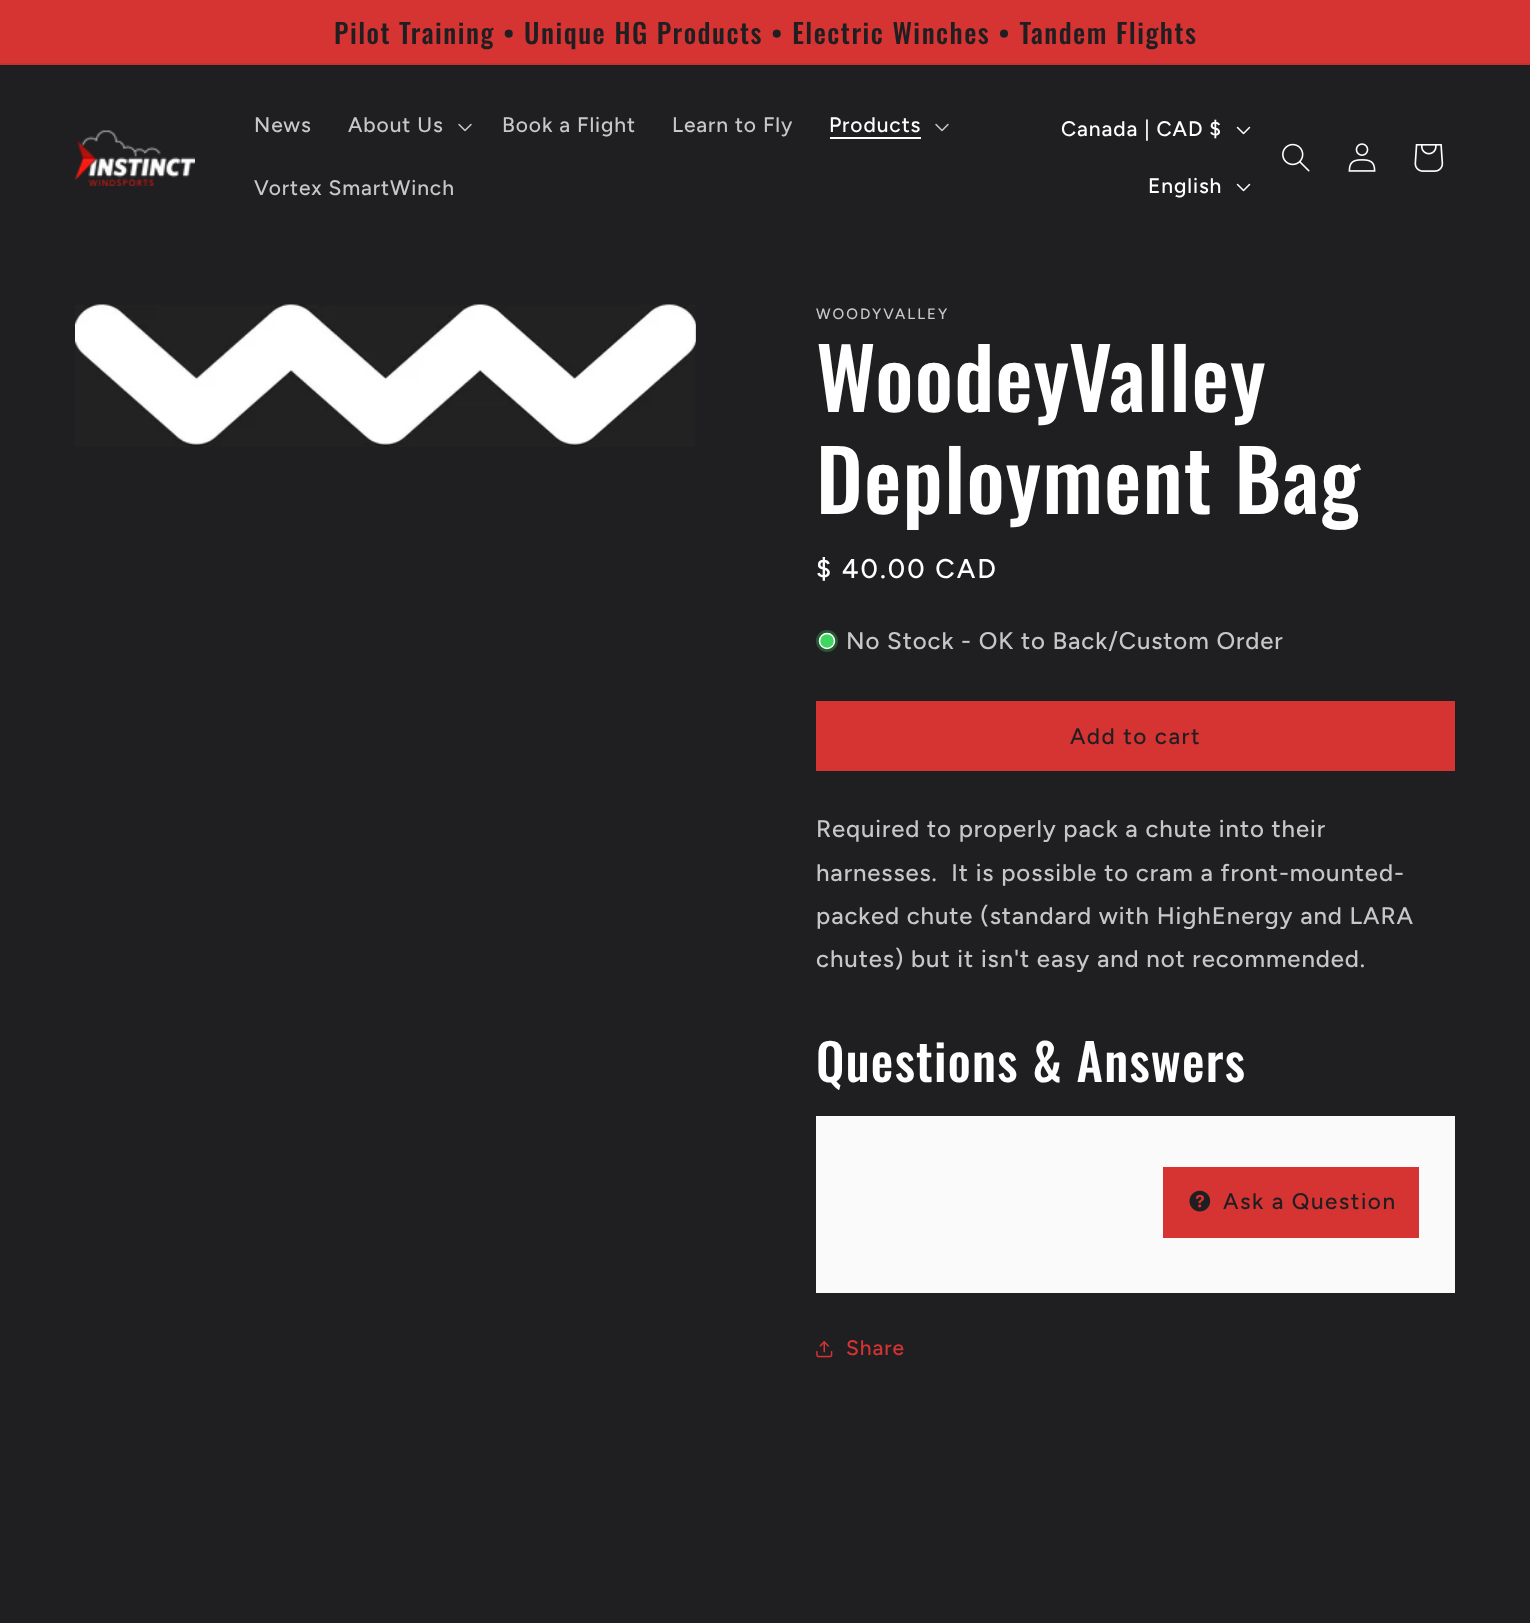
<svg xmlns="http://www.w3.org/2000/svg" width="1530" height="1623">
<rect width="100%" height="100%" fill="#1f1f21"/>
<rect width="1530" height="63" fill="#d63333"/>
<rect y="63" width="1530" height="2" fill="#c73132"/>
<text x="334" y="44" style="font-family:Oswald;font-size:27.3px;font-weight:500;letter-spacing:1.5px;fill:#1f1f21">Pilot Training • Unique HG Products • Electric Winches • Tandem Flights</text>
<image x="75" y="130" width="120" height="56" href="media/1.png"/>
<text x="254" y="132" style="font-family:Figtree;font-size:21px;font-weight:500;letter-spacing:0.9px;fill:#c7c7c8">News</text>
<text x="348" y="132" style="font-family:Figtree;font-size:21px;font-weight:500;letter-spacing:0.9px;fill:#c7c7c8">About Us</text>
<image x="458" y="123" width="14" height="9" href="media/2.png"/>
<text x="502" y="132" style="font-family:Figtree;font-size:21px;font-weight:500;letter-spacing:0.9px;fill:#c7c7c8">Book a Flight</text>
<text x="672" y="132" style="font-family:Figtree;font-size:21px;font-weight:500;letter-spacing:0.9px;fill:#c7c7c8">Learn to Fly</text>
<text x="829" y="132" style="font-family:Figtree;font-size:21px;font-weight:500;letter-spacing:0.9px;fill:#fff">Products</text>
<rect x="830" y="137" width="91" height="2" fill="#fff"/>
<image x="935" y="123" width="14" height="9" href="media/2.png"/>
<text x="254" y="195" style="font-family:Figtree;font-size:21px;font-weight:500;letter-spacing:0.9px;fill:#c7c7c8">Vortex SmartWinch</text>
<text x="1061" y="136" style="font-family:Figtree;font-size:21px;font-weight:500;letter-spacing:0.9px;fill:#fff">Canada | CAD $</text>
<image x="1236" y="126" width="15" height="9" href="media/3.png"/>
<text x="1148" y="193" style="font-family:Figtree;font-size:21px;font-weight:500;letter-spacing:0.9px;fill:#fff">English</text>
<image x="1236" y="183" width="15" height="9" href="media/3.png"/>
<image x="1282" y="143" width="28" height="29" href="media/4.png"/>
<image x="1348" y="143" width="28" height="29" href="media/5.png"/>
<image x="1414" y="144" width="30" height="28" href="media/6.png"/>
<image x="75" y="304" width="621" height="143" href="media/7.png"/>
<text x="816" y="319" style="font-family:Figtree;font-size:15px;font-weight:500;letter-spacing:2px;fill:#c7c7c8">WOODYVALLEY</text>
<text x="816" y="412" style="font-family:Oswald;font-size:84px;font-weight:500;letter-spacing:1.25px;fill:#fff">WoodeyValley</text>
<text x="816" y="514" style="font-family:Oswald;font-size:84px;font-weight:500;letter-spacing:1.25px;fill:#fff">Deployment Bag</text>
<text x="816" y="578" style="font-family:Figtree;font-size:27px;font-weight:500;letter-spacing:2px;fill:#fff">$ 40.00 CAD</text>
<circle cx="827" cy="641" r="11" fill="#285634"/>
<circle cx="827" cy="641" r="7.5" fill="#3ed660" stroke="#fff" stroke-width="1.5"/>
<text x="846" y="649" style="font-family:Figtree;font-size:24px;font-weight:500;letter-spacing:0.9px;fill:#c7c7c8">No Stock - OK to Back/Custom Order</text>
<rect x="816" y="701" width="639" height="70" fill="#d63333"/>
<text x="1070" y="744" style="font-family:Figtree;font-size:22.5px;font-weight:500;letter-spacing:1.5px;fill:#1f1f21">Add to cart</text>
<text x="816" y="837" style="font-family:Figtree;font-size:24px;font-weight:500;letter-spacing:0.9px;fill:#c7c7c8">Required to properly pack a chute into their</text>
<text x="816" y="881" style="font-family:Figtree;font-size:24px;font-weight:500;letter-spacing:0.9px;fill:#c7c7c8" xml:space="preserve">harnesses.  It is possible to cram a front-mounted-</text>
<text x="816" y="924" style="font-family:Figtree;font-size:24px;font-weight:500;letter-spacing:0.9px;fill:#c7c7c8">packed chute (standard with HighEnergy and LARA</text>
<text x="816" y="967" style="font-family:Figtree;font-size:24px;font-weight:500;letter-spacing:0.9px;fill:#c7c7c8">chutes) but it isn't easy and not recommended.</text>
<text x="816" y="1082" style="font-family:Oswald;font-size:50.5px;font-weight:500;letter-spacing:1.25px;fill:#fff">Questions &amp; Answers</text>
<rect x="816" y="1116" width="639" height="177" fill="#fafafa"/>
<rect x="1163" y="1167" width="256" height="71" fill="#d63333"/>
<image x="1189" y="1190" width="22" height="22" href="media/8.png"/>
<text x="1223" y="1209" style="font-family:Figtree;font-size:22.5px;font-weight:500;letter-spacing:1.5px;fill:#1f1f21">Ask a Question</text>
<image x="816" y="1341" width="17" height="17" href="media/9.png"/>
<text x="846" y="1355" style="font-family:Figtree;font-size:21px;font-weight:500;letter-spacing:0.9px;fill:#d63333">Share</text>
</svg>
